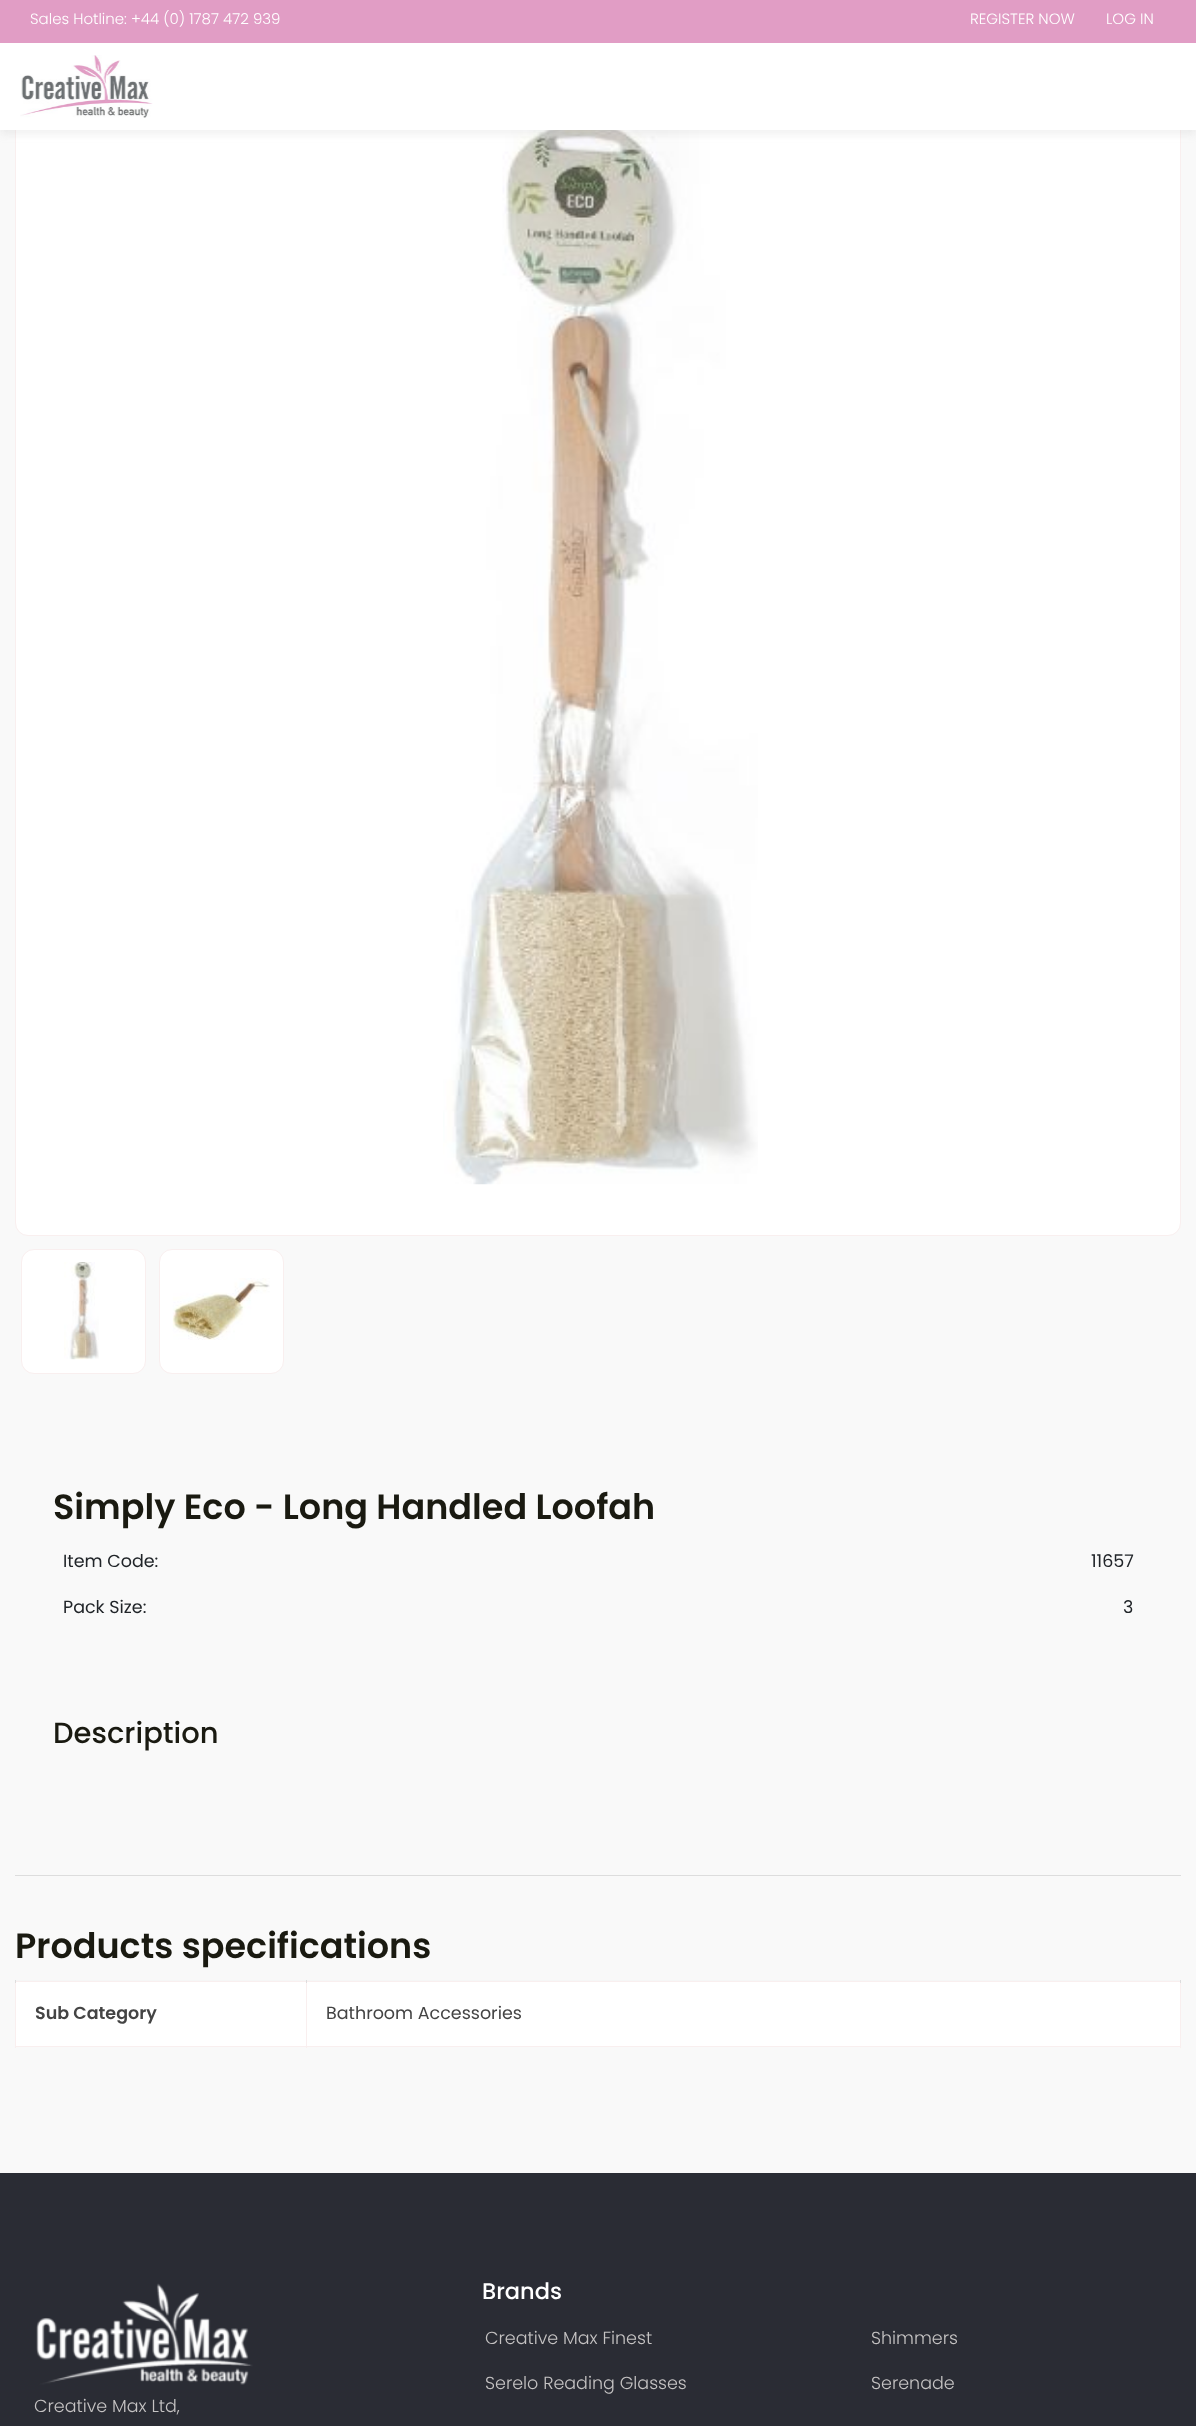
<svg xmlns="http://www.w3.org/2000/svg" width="1196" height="2426">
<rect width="100%" height="100%" fill="#f9f9f9"/>
<rect x="15.5" y="70.5" width="1165" height="1165" rx="12.5" fill="#fff" stroke="#f9efef"/>
<image x="443" y="130" width="315" height="1055" href="media/2.png"/>
<rect y="4" width="1196" height="130" fill="#a2a1a129" filter="blur(4px)"/>
<rect y="43" width="1196" height="87" fill="#fff"/>
<rect width="1196" height="43" fill="#e19dc5"/>
<text x="30" y="24" style="font-family:Poppins;font-size:15px;font-weight:300;fill:#fff">Sales Hotline: +44 (0) 1787 472 939</text>
<text x="970" y="24" style="font-family:Poppins;font-size:15px;font-weight:300;fill:#fff">REGISTER NOW</text>
<text x="1106" y="24" style="font-family:Poppins;font-size:15px;font-weight:300;fill:#fff">LOG IN</text>
<image x="20" y="55" width="133" height="63" href="media/1.png"/>
<rect x="15" y="1875" width="1166" height="1" fill="#ddd"/>
<rect x="21.5" y="1249.5" width="124" height="124" rx="12.5" fill="#fff" stroke="#f9efef"/>
<image x="64" y="1262" width="35" height="98" href="media/3.png"/>
<rect x="159.5" y="1249.5" width="124" height="124" rx="12.5" fill="#fff" stroke="#f9efef"/>
<image x="172" y="1278" width="98" height="62" href="media/4.png"/>
<text x="53" y="1519" style="font-family:Poppins;font-size:35px;font-weight:600;fill:#1a1a11">Simply Eco - Long Handled Loofah</text>
<text x="63" y="1567" style="font-family:Poppins;font-size:17.5px;fill:#212529">Item Code:</text>
<text x="1091" y="1567" style="font-family:Poppins;font-size:17.5px;fill:#212529">11657</text>
<text x="63" y="1613" style="font-family:Poppins;font-size:17.5px;fill:#212529">Pack Size:</text>
<text x="1123" y="1613" style="font-family:Poppins;font-size:17.5px;fill:#212529">3</text>
<text x="53" y="1743" style="font-family:Poppins;font-size:29px;font-weight:500;fill:#1a1a11">Description</text>
<text x="15" y="1958" style="font-family:Poppins;font-size:35px;font-weight:600;fill:#1a1a11">Products specifications</text>
<rect x="16" y="1980" width="1165" height="1" fill="#f6f6f6"/>
<rect x="306" y="1981" width="875" height="1" fill="#f9efef"/>
<rect x="16" y="1982" width="1164" height="64" fill="#fff"/>
<rect x="1180" y="1981" width="1" height="67" fill="#f9efef"/>
<rect x="306" y="2046" width="875" height="1" fill="#f9efef"/>
<rect x="306" y="1981" width="1" height="67" fill="#f9efef"/>
<rect x="15" y="1981" width="293" height="1" fill="#f9efef"/>
<rect x="15" y="2046" width="293" height="1" fill="#f9efef"/>
<rect x="15" y="1981" width="1" height="67" fill="#f9efef"/>
<rect x="15" y="1980" width="1" height="3" fill="#ddd"/>
<rect x="1180" y="1980" width="1" height="3" fill="#ddd"/>
<rect x="306" y="1980" width="1" height="3" fill="#ddd"/>
<text x="35" y="2019" style="font-family:Poppins;font-size:17.5px;font-weight:600;fill:#444">Sub Category</text>
<text x="326" y="2019" style="font-family:Poppins;font-size:17.5px;fill:#444">Bathroom Accessories</text>
<rect y="2173" width="1196" height="253" fill="#2a2c34"/>
<text x="482" y="2299" style="font-family:Poppins;font-size:22.5px;font-weight:500;fill:#fff">Brands</text>
<text x="485" y="2344" style="font-family:Poppins;font-size:17.5px;font-weight:300;fill:#c5c3c3">Creative Max Finest</text>
<text x="485" y="2389" style="font-family:Poppins;font-size:17.5px;font-weight:300;fill:#c5c3c3">Serelo Reading Glasses</text>
<text x="871" y="2344" style="font-family:Poppins;font-size:17.5px;font-weight:300;fill:#c5c3c3">Shimmers</text>
<text x="871" y="2389" style="font-family:Poppins;font-size:17.5px;font-weight:300;fill:#c5c3c3">Serenade</text>
<image x="36" y="2283" width="217" height="102" href="media/5.png"/>
<text x="34" y="2412" style="font-family:Poppins;font-size:17.5px;font-weight:300;fill:#c5c3c3">Creative Max Ltd,</text>
</svg>
